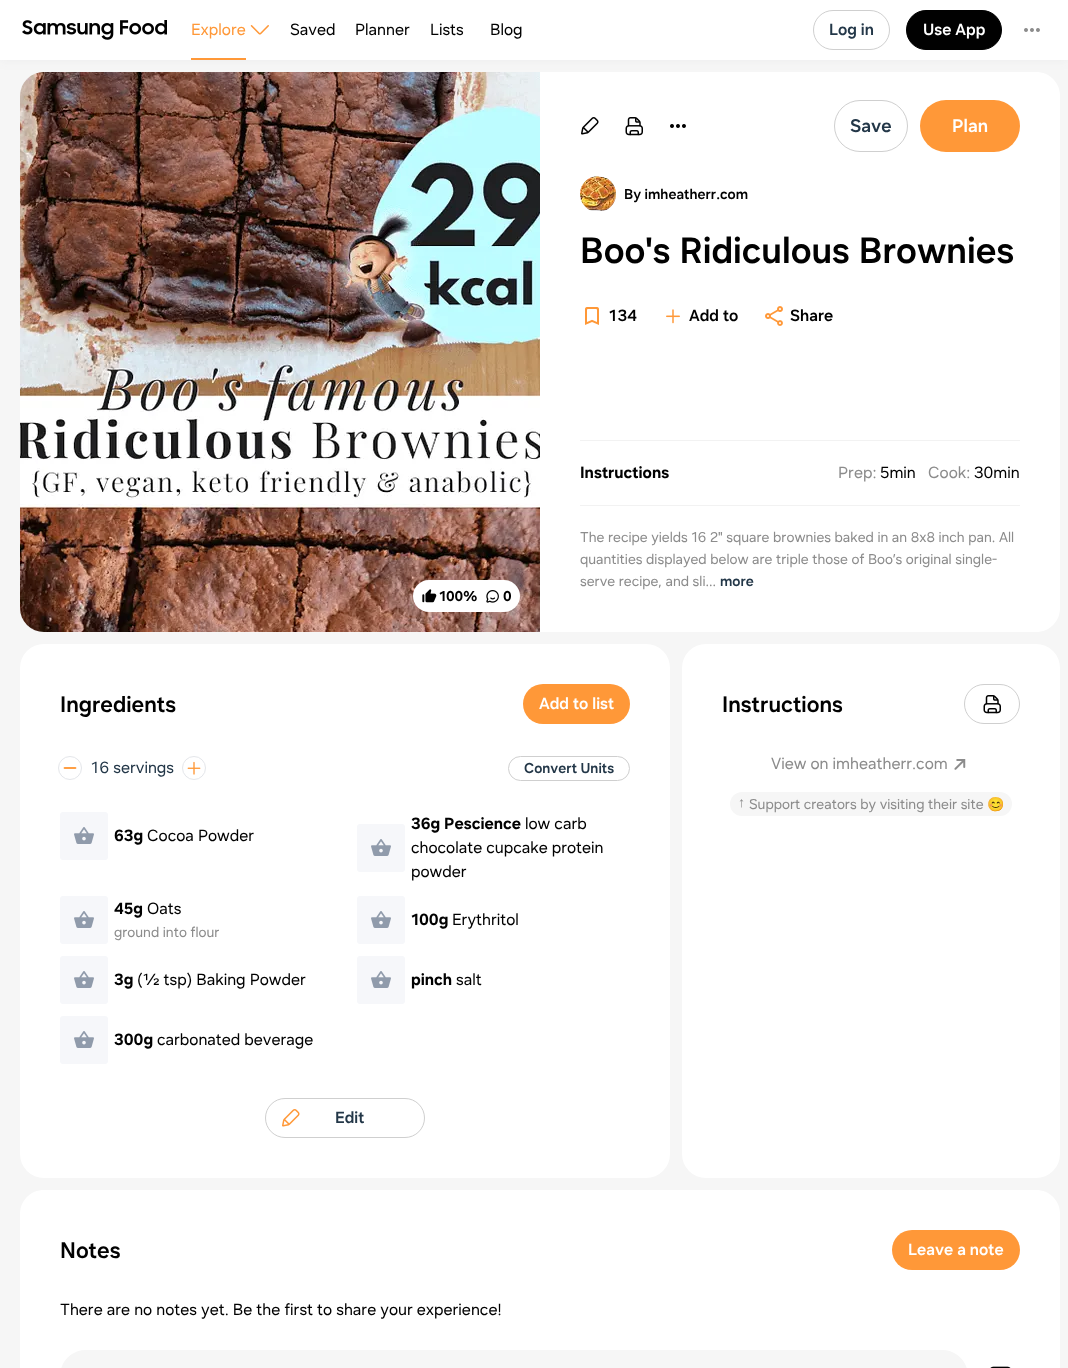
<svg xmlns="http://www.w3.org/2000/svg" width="1068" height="1368">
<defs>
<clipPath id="clip1"><rect x="191" width="55" height="60"/></clipPath>
</defs>
<rect width="100%" height="100%" fill="#f6f6f6"/>
<path d="M540 72h496c13.5 0 24 10.5 24 24v512c0 13.5-10.5 24-24 24h-496z" fill="#fff"/>
<image x="20" y="72" width="520" height="560" href="media/11.png"/>
<rect width="1068" height="60" fill="#4f4f6a0f" filter="blur(6px)"/>
<rect width="1068" height="60" fill="#fff"/>
<image x="22" y="20" width="145" height="20" href="media/1.png"/>
<g clip-path="url(#clip1)">
<path d="M92-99h253v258h-253zm99 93h55c1 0 2 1 2 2v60c0 1-1 2-2 2h-55c-1 0-2-1-2-2v-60c0-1 1-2 2-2z" fill="#ff9838" fill-rule="evenodd"/>
</g>
<text x="191" y="35" style="font-family:'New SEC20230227';font-size:16px;fill:#ff9838">Explore</text>
<image x="250" y="25" width="19" height="10" href="media/2.png"/>
<text x="290" y="35" style="font-family:'New SEC20230227';font-size:16px;fill:#010101">Saved</text>
<text x="355" y="35" style="font-family:'New SEC20230227';font-size:16px;fill:#010101">Planner</text>
<text x="430" y="35" style="font-family:'New SEC20230227';font-size:16px;fill:#010101">Lists</text>
<text x="490" y="35" style="font-family:'New SEC20230227';font-size:16px;fill:#010101">Blog</text>
<rect x="813.5" y="10.5" width="76" height="39" rx="19.5" fill="none" stroke="#cfcfcf"/>
<text x="829" y="35" style="font-family:'New SEC20230227';font-size:16px;font-weight:600;fill:#233748">Log in</text>
<rect x="906.5" y="10.5" width="95" height="39" rx="19.5" fill="#010101" stroke="#010101"/>
<text x="923" y="35" style="font-family:'New SEC20230227';font-size:16px;font-weight:600;fill:#fff">Use App</text>
<image x="1024" y="28" width="16" height="4" href="media/3.png"/>
<image x="581" y="117" width="18" height="18" href="media/4.png"/>
<image x="625" y="117" width="18" height="19" href="media/5.png"/>
<image x="670" y="124" width="16" height="4" href="media/6.png"/>
<rect x="834.5" y="100.5" width="73" height="51" rx="25.5" fill="none" stroke="#cfcfcf"/>
<text x="850" y="132" style="font-family:'New SEC20230227';font-size:18px;font-weight:600;fill:#233748">Save</text>
<rect x="920" y="100" width="100" height="52" rx="26" fill="#ff9838"/>
<text x="952" y="132" style="font-family:'New SEC20230227';font-size:18px;font-weight:600;fill:#fff">Plan</text>
<image x="580" y="176" width="36" height="35" href="media/7.png"/>
<text x="624" y="199" style="font-family:'New SEC20230227';font-size:14px;font-weight:600;fill:#010101">By imheatherr.com</text>
<text x="580" y="263" style="font-family:'New SEC20230227';font-size:36px;font-weight:600;fill:#010101">Boo's Ridiculous Brownies</text>
<image x="585" y="307" width="14" height="18" href="media/8.png"/>
<text x="608" y="321" style="font-family:'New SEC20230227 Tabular';font-size:16px;font-weight:600;fill:#010101">134</text>
<image x="666" y="309" width="14" height="15" href="media/9.png"/>
<text x="689" y="321" style="font-family:'New SEC20230227';font-size:16px;font-weight:600;fill:#010101">Add to</text>
<image x="765" y="306" width="18" height="20" href="media/10.png"/>
<text x="790" y="321" style="font-family:'New SEC20230227';font-size:16px;font-weight:600;fill:#010101">Share</text>
<rect x="580" y="440" width="440" height="1" fill="#f2f2f2"/>
<text x="580" y="478" style="font-family:'New SEC20230227';font-size:16px;font-weight:bold;fill:#010101">Instructions</text>
<text x="838" y="478" style="font-family:'New SEC20230227';font-size:16px;fill:#8c8c8c">Prep:</text>
<text x="880" y="478" style="font-family:'New SEC20230227';font-size:16px;fill:#010101">5min</text>
<text x="928" y="478" style="font-family:'New SEC20230227';font-size:16px;fill:#8c8c8c">Cook:</text>
<text x="974" y="478" style="font-family:'New SEC20230227';font-size:16px;fill:#010101">30min</text>
<rect x="580" y="505" width="440" height="1" fill="#f2f2f2"/>
<text x="580" y="542" style="font-family:'New SEC20230227';font-size:14px;fill:#8c8c8c">The recipe yields 16 2" square brownies baked in an 8x8 inch pan. All</text>
<text x="580" y="564" style="font-family:'New SEC20230227';font-size:14px;fill:#8c8c8c">quantities displayed below are triple those of Boo’s original single-</text>
<text x="580" y="586" style="font-family:'New SEC20230227';font-size:14px;fill:#8c8c8c">serve recipe, and sli...</text>
<text x="720" y="586" style="font-family:'New SEC20230227';font-size:14px;font-weight:600;fill:#233748">more</text>
<rect x="413" y="580" width="107" height="32" rx="16" fill="#fff"/>
<image x="422" y="589" width="15" height="14" href="media/12.png"/>
<text x="439" y="601" style="font-family:'New SEC20230227';font-size:14px;font-weight:bold;fill:#010101">100%</text>
<image x="486" y="590" width="13" height="13" href="media/13.png"/>
<text x="503" y="601" style="font-family:'New SEC20230227';font-size:14px;font-weight:bold;fill:#010101">0</text>
<rect x="20" y="644" width="650" height="534" rx="24" fill="#fff"/>
<text x="60" y="712" style="font-family:'New SEC20230227';font-size:22px;font-weight:600;fill:#010101">Ingredients</text>
<rect x="523" y="684" width="107" height="40" rx="20" fill="#ff9838"/>
<text x="539" y="709" style="font-family:'New SEC20230227';font-size:16px;font-weight:600;fill:#fff">Add to list</text>
<circle cx="70" cy="768" r="11.5" fill="none" stroke="#e4e6ea"/>
<image x="63" y="767" width="14" height="2" href="media/14.png"/>
<text x="90" y="773" style="font-family:'New SEC20230227 Tabular';font-size:16px;fill:#233748">16 servings</text>
<circle cx="194" cy="768" r="11.5" fill="none" stroke="#e4e6ea"/>
<image x="187" y="761" width="14" height="14" href="media/15.png"/>
<rect x="508.5" y="756.5" width="121" height="24" rx="12" fill="none" stroke="#cfcfcf"/>
<text x="524" y="773" style="font-family:'New SEC20230227';font-size:14px;font-weight:600;fill:#233748">Convert Units</text>
<rect x="60" y="812" width="48" height="48" rx="3" fill="#f6f7fa"/>
<image x="74" y="827" width="20" height="17" href="media/16.png"/>
<text x="114" y="841" style="font-family:'New SEC20230227';font-size:16px;font-weight:bold;fill:#010101">63g</text>
<text x="147" y="841" style="font-family:'New SEC20230227';font-size:16px;fill:#010101">Cocoa Powder</text>
<rect x="357" y="824" width="48" height="48" rx="3" fill="#f6f7fa"/>
<image x="371" y="839" width="20" height="17" href="media/16.png"/>
<text x="411" y="829" style="font-family:'New SEC20230227';font-size:16px;font-weight:bold;fill:#010101">36g Pescience</text>
<text x="525" y="829" style="font-family:'New SEC20230227';font-size:16px;fill:#010101">low carb</text>
<text x="411" y="853" style="font-family:'New SEC20230227';font-size:16px;fill:#010101">chocolate cupcake protein</text>
<text x="411" y="877" style="font-family:'New SEC20230227';font-size:16px;fill:#010101">powder</text>
<rect x="60" y="896" width="48" height="48" rx="3" fill="#f6f7fa"/>
<image x="74" y="911" width="20" height="17" href="media/16.png"/>
<text x="114" y="914" style="font-family:'New SEC20230227';font-size:16px;font-weight:bold;fill:#010101">45g</text>
<text x="147" y="914" style="font-family:'New SEC20230227';font-size:16px;fill:#010101">Oats</text>
<text x="114" y="937" style="font-family:'New SEC20230227';font-size:14px;fill:#8c8c8c">ground into flour</text>
<rect x="357" y="896" width="48" height="48" rx="3" fill="#f6f7fa"/>
<image x="371" y="911" width="20" height="17" href="media/16.png"/>
<text x="411" y="925" style="font-family:'New SEC20230227';font-size:16px;font-weight:bold;fill:#010101">100g</text>
<text x="452" y="925" style="font-family:'New SEC20230227';font-size:16px;fill:#010101">Erythritol</text>
<rect x="60" y="956" width="48" height="48" rx="3" fill="#f6f7fa"/>
<image x="74" y="971" width="20" height="17" href="media/16.png"/>
<text x="114" y="985" style="font-family:'New SEC20230227';font-size:16px;font-weight:bold;fill:#010101">3g</text>
<text x="137" y="985" style="font-family:'New SEC20230227';font-size:16px;fill:#010101">(½ tsp) Baking Powder</text>
<rect x="357" y="956" width="48" height="48" rx="3" fill="#f6f7fa"/>
<image x="371" y="971" width="20" height="17" href="media/16.png"/>
<text x="411" y="985" style="font-family:'New SEC20230227';font-size:16px;font-weight:bold;fill:#010101">pinch</text>
<text x="456" y="985" style="font-family:'New SEC20230227';font-size:16px;fill:#010101">salt</text>
<rect x="60" y="1016" width="48" height="48" rx="3" fill="#f6f7fa"/>
<image x="74" y="1031" width="20" height="17" href="media/16.png"/>
<text x="114" y="1045" style="font-family:'New SEC20230227';font-size:16px;font-weight:bold;fill:#010101">300g</text>
<text x="157" y="1045" style="font-family:'New SEC20230227';font-size:16px;fill:#010101">carbonated beverage</text>
<rect x="265.5" y="1098.5" width="159" height="39" rx="19.5" fill="none" stroke="#cfcfcf"/>
<image x="282" y="1109" width="18" height="18" href="media/17.png"/>
<text x="335" y="1123" style="font-family:'New SEC20230227';font-size:16px;font-weight:600;fill:#233748">Edit</text>
<rect x="682" y="644" width="378" height="534" rx="24" fill="#fff"/>
<text x="722" y="712" style="font-family:'New SEC20230227';font-size:22px;font-weight:600;fill:#010101">Instructions</text>
<rect x="964.5" y="684.5" width="55" height="39" rx="19.5" fill="none" stroke="#cfcfcf"/>
<image x="983" y="695" width="18" height="19" href="media/5.png"/>
<text x="771" y="769" style="font-family:'New SEC20230227';font-size:16px;fill:#8c8c8c">View on imheatherr.com</text>
<image x="954" y="759" width="12" height="11" href="media/18.png"/>
<rect x="730" y="792" width="282" height="24" rx="12" fill="#f6f6f6"/>
<text x="738" y="807" style="font-family:Liberation Sans;font-size:14px;fill:#8c8c8c">↑</text>
<text x="749" y="809" style="font-family:'New SEC20230227';font-size:14px;fill:#8c8c8c">Support creators by visiting their site</text>
<text x="987" y="809" style="font-family:Noto Color Emoji;font-size:14px;fill:#8c8c8c">😊</text>
<path d="M44 1190h992c13.5 0 24 10.5 24 24v154h-1040v-154c0-13.5 10.5-24 24-24z" fill="#fff"/>
<text x="60" y="1258" style="font-family:'New SEC20230227';font-size:22px;font-weight:600;fill:#010101">Notes</text>
<rect x="892" y="1230" width="128" height="40" rx="20" fill="#ff9838"/>
<text x="908" y="1255" style="font-family:'New SEC20230227';font-size:16px;font-weight:600;fill:#fff">Leave a note</text>
<text x="60" y="1315" style="font-family:'New SEC20230227';font-size:16px;fill:#010101">There are no notes yet. Be the first to share your experience!</text>
<path d="M86 1350h856c14.5 0 26 11.5 26 26v-8h-908v8c0-14.5 11.5-26 26-26z" fill="#f6f6f6"/>
<image x="990" y="1366" width="21" height="2" href="media/19.png"/>
</svg>
